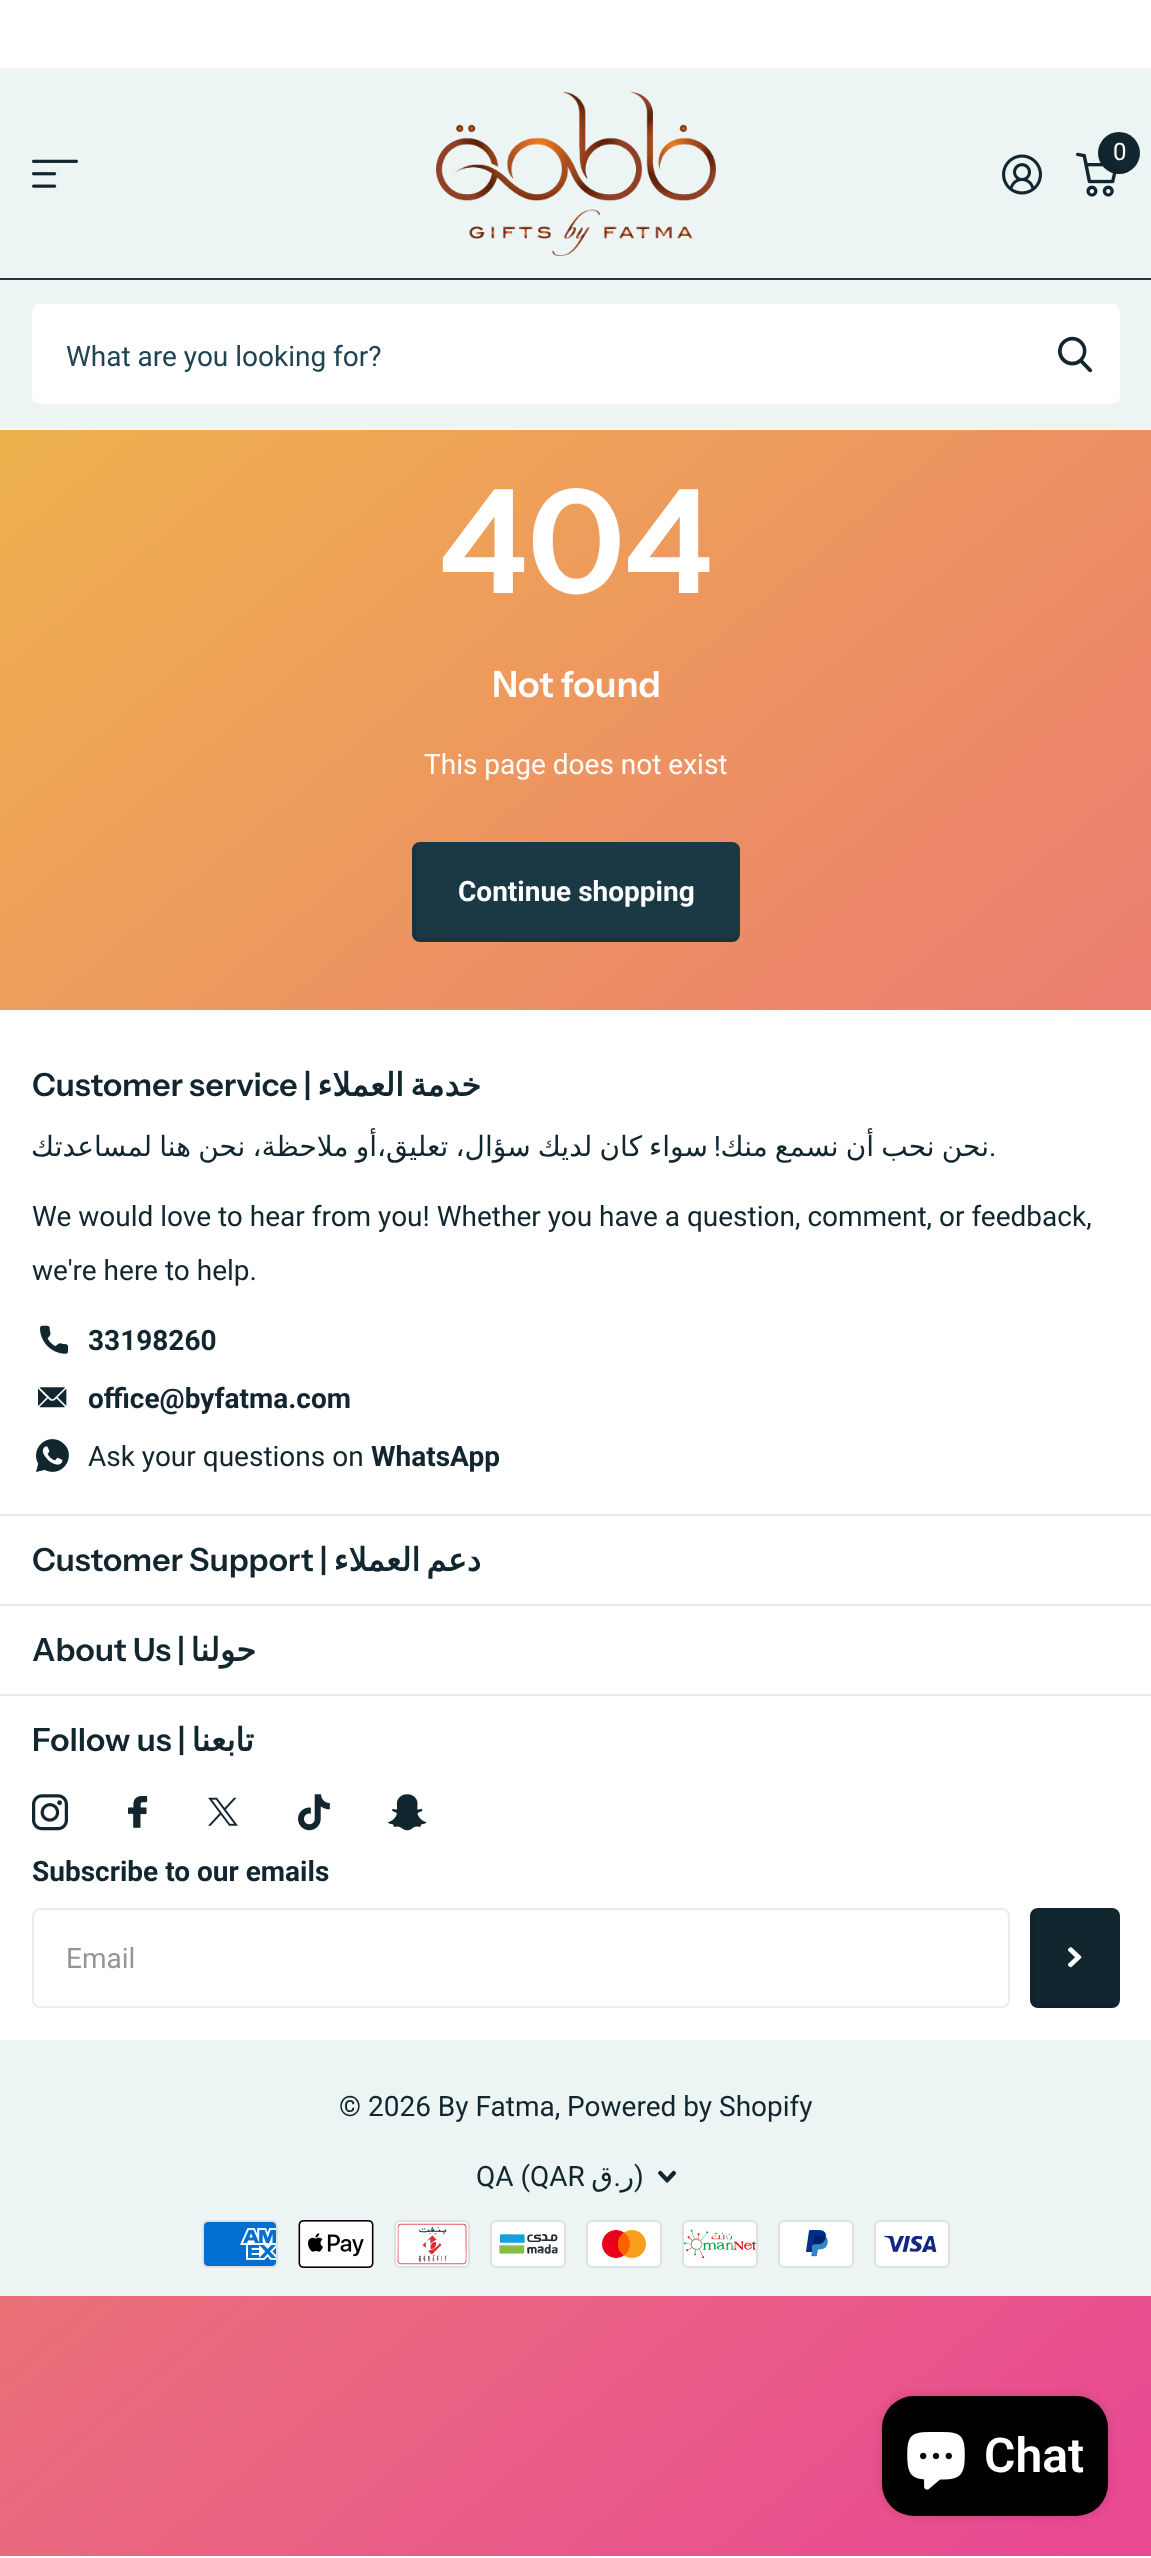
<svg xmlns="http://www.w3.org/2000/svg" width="1151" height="2558">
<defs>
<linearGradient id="g1" gradientUnits="userSpaceOnUse" x1="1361" y1="2428" x2="-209" y2="558"><stop offset="0.04" stop-color="#e84a93"/><stop offset="1" stop-color="#efb34c"/></linearGradient>
</defs>
<rect width="100%" height="100%" fill="#fff"/>
<rect y="68" width="1151" height="210" fill="#edf4f4"/>
<rect y="278" width="1151" height="2" fill="#1a3945"/>
<image x="436" y="92" width="280" height="164" href="media/1.png"/>
<image x="1076" y="152" width="41" height="45" href="media/2.png"/>
<circle cx="1119" cy="153" r="21" fill="#12262f"/>
<path d="M1135 167c-3.5 2-7 3-12 3c-19.5 0-25.5-20.5-17.5-33c-9.5 8-10 22-1.5 31c8.5 8.5 23 8 31-1z" fill="#0000001a"/>
<text x="1113" y="160" style="font-family:Roboto;font-size:24px;fill:#fff">0</text>
<image x="1002" y="154" width="40" height="41" href="media/3.png"/>
<image x="32" y="159" width="46" height="29" href="media/4.png"/>
<rect y="280" width="1151" height="148" fill="#edf4f4"/>
<rect x="32" y="304" width="1088" height="100" rx="8" fill="#fff"/>
<text x="66" y="366" style="font-family:Roboto;font-size:28px;fill:#204454">What are you looking for?</text>
<image x="1058" y="336" width="34" height="37" href="media/5.png"/>
<rect y="430" width="1151" height="2126" fill="url(#g1)"/>
<text x="439" y="593" style="font-family:Instrument Sans;font-size:144px;font-weight:600;fill:#fff">404</text>
<text x="492" y="697" style="font-family:Instrument Sans;font-size:36px;font-weight:600;fill:#fff">Not found</text>
<text x="424" y="774" style="font-family:Roboto;font-size:28px;fill:#fff">This page does not exist</text>
<rect x="412" y="842" width="328" height="100" rx="8" fill="#1a3945"/>
<path d="M417 843c-3 1-5 4-5 7v84c0 4 4 8 8 8h312c3 0 6-2 7-5l-3 1h-312c-4 0-8-4-8-8v-84z" fill="#0000001a"/>
<text x="458" y="901" style="font-family:Roboto;font-size:28px;font-weight:bold;fill:#fff">Continue shopping</text>
<rect y="1010" width="1151" height="1030" fill="#fff"/>
<text x="32" y="1096" style="font-family:Instrument Sans;font-size:32px;font-weight:600;fill:#12262f">Customer service |</text>
<text x="481" y="1096" word-spacing="-4" style="font-family:DejaVu Sans;font-size:32px;font-weight:bold;direction:rtl;fill:#12262f">خدمة العملاء</text>
<text x="708" y="1156" word-spacing="-1.75" style="font-family:DejaVu Sans;font-size:28px;direction:rtl;fill:#12262f">سواء كان لديك سؤال، تعليق،أو ملاحظة، نحن هنا لمساعدتك</text>
<text x="721" y="1156" style="font-family:Roboto;font-size:28px;direction:rtl;fill:#12262f">!</text>
<text x="989" y="1156" word-spacing="-1.75" style="font-family:DejaVu Sans;font-size:28px;direction:rtl;fill:#12262f">نحن نحب أن نسمع منك</text>
<text x="989" y="1156" style="font-family:Roboto;font-size:28px;fill:#12262f">.</text>
<text x="32" y="1226" style="font-family:Roboto;font-size:28px;fill:#12262f">We would love to hear from you! Whether you have a question, comment, or feedback,</text>
<text x="32" y="1280" style="font-family:Roboto;font-size:28px;fill:#12262f">we're here to help.</text>
<image x="40" y="1325" width="28" height="29" href="media/6.png"/>
<text x="88" y="1350" style="font-family:Roboto;font-size:28px;font-weight:bold;fill:#12262f">33198260</text>
<image x="38" y="1387" width="29" height="21" href="media/7.png"/>
<text x="88" y="1408" style="font-family:Roboto;font-size:28px;font-weight:bold;fill:#12262f">office@byfatma.com</text>
<image x="36" y="1439" width="33" height="33" href="media/8.png"/>
<text x="88" y="1466" style="font-family:Roboto;font-size:28px;fill:#12262f">Ask your questions on</text>
<text x="371" y="1466" style="font-family:Roboto;font-size:28px;font-weight:bold;fill:#12262f">WhatsApp</text>
<rect y="1514" width="1151" height="2" fill="#e7e9ea"/>
<text x="32" y="1571" style="font-family:Instrument Sans;font-size:32px;font-weight:600;fill:#12262f">Customer Support |</text>
<text x="481" y="1571" word-spacing="-4" style="font-family:DejaVu Sans;font-size:32px;font-weight:bold;direction:rtl;fill:#12262f">دعم العملاء</text>
<rect y="1604" width="1151" height="2" fill="#e7e9ea"/>
<text x="32" y="1661" style="font-family:Instrument Sans;font-size:32px;font-weight:600;fill:#12262f">About Us |</text>
<text x="256" y="1661" style="font-family:DejaVu Sans;font-size:32px;font-weight:bold;direction:rtl;fill:#12262f">حولنا</text>
<rect y="1694" width="1151" height="2" fill="#e7e9ea"/>
<text x="32" y="1751" style="font-family:Instrument Sans;font-size:32px;font-weight:600;fill:#12262f">Follow us |</text>
<text x="254" y="1751" style="font-family:DejaVu Sans;font-size:32px;font-weight:bold;direction:rtl;fill:#12262f">تابعنا</text>
<image x="32" y="1794" width="36" height="37" href="media/9.png"/>
<image x="128" y="1796" width="20" height="32" href="media/10.png"/>
<image x="208" y="1797" width="30" height="29" href="media/11.png"/>
<image x="298" y="1794" width="32" height="37" href="media/12.png"/>
<image x="388" y="1794" width="39" height="37" href="media/13.png"/>
<text x="32" y="1881" style="font-family:Roboto;font-size:28px;font-weight:bold;fill:#12262f">Subscribe to our emails</text>
<rect x="33" y="1909" width="976" height="98" rx="7" fill="none" stroke="#eceeee" stroke-width="2"/>
<text x="66" y="1968" style="font-family:Roboto;font-size:28px;fill:#959595">Email</text>
<rect x="1030" y="1908" width="90" height="100" rx="8" fill="#12262f"/>
<path d="M1035 1909c-3 1-5 4-5 7v84c0 4 4 8 8 8h74c3 0 6-2 7-5l-3 1h-74c-4 0-8-4-8-8v-84z" fill="#0000001a"/>
<image x="1068" y="1947" width="14" height="21" href="media/14.png"/>
<rect y="2040" width="1151" height="256" fill="#edf4f4"/>
<text x="339" y="2116" style="font-family:Roboto;font-size:28px;fill:#12262f">© 2026 By Fatma, Powered by Shopify</text>
<text x="476" y="2186" style="font-family:Roboto;font-size:28px;fill:#12262f">QA (QAR</text>
<text x="613" y="2186" style="font-family:DejaVu Sans;font-size:28px;direction:rtl;fill:#12262f">ق</text>
<text x="634" y="2186" style="font-family:Roboto;font-size:28px;fill:#12262f">)</text>
<image x="658" y="2170" width="18" height="13" href="media/15.png"/>
<text x="621" y="2186" style="font-family:Roboto;font-size:28px;direction:rtl;fill:#12262f">.</text>
<text x="634" y="2186" style="font-family:DejaVu Sans;font-size:28px;direction:rtl;fill:#12262f">ر</text>
<image x="202" y="2220" width="76" height="48" href="media/16.png"/>
<image x="298" y="2220" width="76" height="48" href="media/17.png"/>
<image x="394" y="2220" width="76" height="48" href="media/18.png"/>
<image x="490" y="2220" width="76" height="48" href="media/19.png"/>
<image x="586" y="2220" width="76" height="48" href="media/20.png"/>
<image x="682" y="2220" width="76" height="48" href="media/21.png"/>
<image x="778" y="2220" width="76" height="48" href="media/22.png"/>
<image x="874" y="2220" width="76" height="48" href="media/23.png"/>
<rect x="882" y="2396" width="226" height="120" rx="32" fill="#00000026" filter="blur(5px)"/>
<rect x="882" y="2396" width="226" height="120" rx="32" fill="#000"/>
<image x="907" y="2432" width="58" height="58" href="media/24.png"/>
<text x="984" y="2472" style="font-family:Roboto;font-size:48px;font-weight:600;fill:#fff">Chat</text>
</svg>
